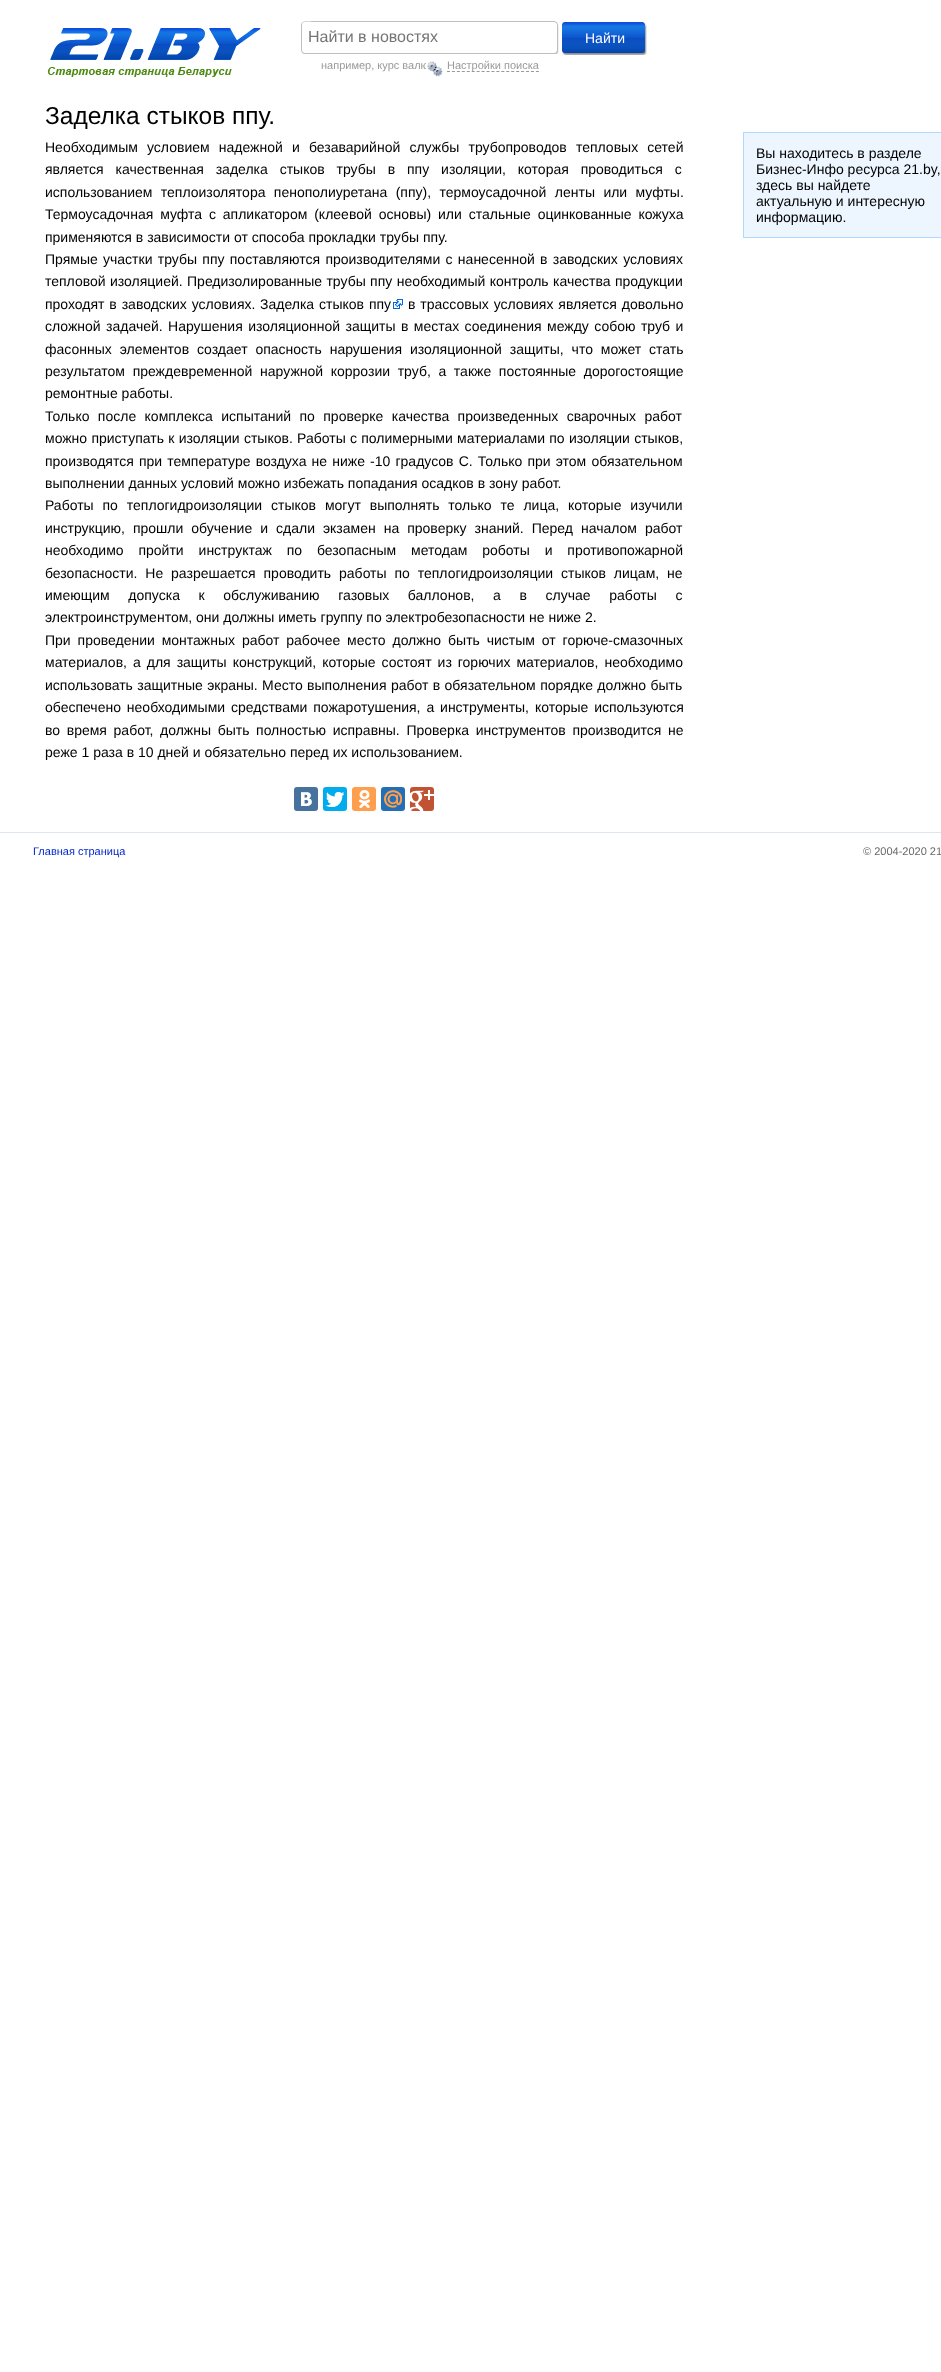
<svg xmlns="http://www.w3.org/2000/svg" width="941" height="2372">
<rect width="100%" height="100%" fill="#fff"/>
<image x="47" y="28" width="214" height="49" href="media/1.png"/>
<image x="311" y="21" width="248" height="33" href="media/2.png"/>
<image x="300" y="21" width="11" height="33" href="media/3.png"/>
<text x="308" y="42" style="font-family:Liberation Sans;font-size:16px;fill:#757575">Найти в новостях</text>
<image x="562" y="22" width="85" height="33" href="media/4.png"/>
<text x="585" y="43" style="font-family:Liberation Sans;font-size:14px;fill:#fff">Найти</text>
<text x="321" y="69" style="font-family:Liberation Sans;font-size:11px;fill:#999">например, курс валю</text>
<image x="426" y="61" width="17" height="16" href="media/5.png"/>
<path d="M447 71.5h92" fill="none" stroke="#999" stroke-dasharray="3 1.94"/>
<text x="447" y="69" style="font-family:Liberation Sans;font-size:11px;fill:#999">Настройки поиска</text>
<text x="45" y="124" style="font-family:Liberation Sans;font-size:24.5px;fill:#000">Заделка стыков ппу.</text>
<text x="45" y="152" word-spacing="5.25" style="font-family:Liberation Sans;font-size:14px;fill:#000">Необходимым условием надежной и безаварийной службы трубопроводов тепловых сетей</text>
<text x="45" y="174" word-spacing="8" style="font-family:Liberation Sans;font-size:14px;fill:#000">является качественная заделка стыков трубы в ппу изоляции, которая проводиться с</text>
<text x="45" y="197" word-spacing="4.5" style="font-family:Liberation Sans;font-size:14px;fill:#000">использованием теплоизолятора пенополиуретана (ппу), термоусадочной ленты или муфты.</text>
<text x="45" y="219" word-spacing="3" style="font-family:Liberation Sans;font-size:14px;fill:#000">Термоусадочная муфта с апликатором (клеевой основы) или стальные оцинкованные кожуха</text>
<text x="45" y="242" style="font-family:Liberation Sans;font-size:14px;fill:#000">применяются в зависимости от способа прокладки трубы ппу.</text>
<text x="45" y="264" word-spacing="1.4" style="font-family:Liberation Sans;font-size:14px;fill:#000">Прямые участки трубы ппу поставляются производителями с нанесенной в заводских условиях</text>
<text x="45" y="286" word-spacing="0.5" style="font-family:Liberation Sans;font-size:14px;fill:#000">тепловой изоляцией. Предизолированные трубы ппу необходимый контроль качества продукции</text>
<text x="45" y="309" word-spacing="1" style="font-family:Liberation Sans;font-size:14px;fill:#000">проходят в заводских условиях.</text>
<text x="260" y="309" word-spacing="1" style="font-family:Liberation Sans;font-size:14px;fill:#000">Заделка стыков ппу</text>
<image x="393" y="299" width="10" height="10" href="media/6.png"/>
<text x="408" y="309" word-spacing="1" style="font-family:Liberation Sans;font-size:14px;fill:#000">в трассовых условиях является довольно</text>
<text x="45" y="331" word-spacing="1.5" style="font-family:Liberation Sans;font-size:14px;fill:#000">сложной задачей. Нарушения изоляционной защиты в местах соединения между собою труб и</text>
<text x="45" y="354" word-spacing="4" style="font-family:Liberation Sans;font-size:14px;fill:#000">фасонных элементов создает опасность нарушения изоляционной защиты, что может стать</text>
<text x="45" y="376" word-spacing="3.75" style="font-family:Liberation Sans;font-size:14px;fill:#000">результатом преждевременной наружной коррозии труб, а также постоянные дорогостоящие</text>
<text x="45" y="398" style="font-family:Liberation Sans;font-size:14px;fill:#000">ремонтные работы.</text>
<text x="45" y="421" word-spacing="4.5" style="font-family:Liberation Sans;font-size:14px;fill:#000">Только после комплекса испытаний по проверке качества произведенных сварочных работ</text>
<text x="45" y="443" word-spacing="0.4" style="font-family:Liberation Sans;font-size:14px;fill:#000">можно приступать к изоляции стыков. Работы с полимерными материалами по изоляции стыков,</text>
<text x="45" y="466" word-spacing="1.25" style="font-family:Liberation Sans;font-size:14px;fill:#000">производятся при температуре воздуха не ниже -10 градусов С. Только при этом обязательном</text>
<text x="45" y="488" style="font-family:Liberation Sans;font-size:14px;fill:#000">выполнении данных условий можно избежать попадания осадков в зону работ.</text>
<text x="45" y="510" word-spacing="5" style="font-family:Liberation Sans;font-size:14px;fill:#000">Работы по теплогидроизоляции стыков могут выполнять только те лица, которые изучили</text>
<text x="45" y="533" word-spacing="4.1" style="font-family:Liberation Sans;font-size:14px;fill:#000">инструкцию, прошли обучение и сдали экзамен на проверку знаний. Перед началом работ</text>
<text x="45" y="555" word-spacing="11" style="font-family:Liberation Sans;font-size:14px;fill:#000">необходимо пройти инструктаж по безопасным методам роботы и противопожарной</text>
<text x="45" y="578" word-spacing="4" style="font-family:Liberation Sans;font-size:14px;fill:#000">безопасности. Не разрешается проводить работы по теплогидроизоляции стыков лицам, не</text>
<text x="45" y="600" word-spacing="14.75" style="font-family:Liberation Sans;font-size:14px;fill:#000">имеющим допуска к обслуживанию газовых баллонов, а в случае работы с</text>
<text x="45" y="622" style="font-family:Liberation Sans;font-size:14px;fill:#000">электроинструментом, они должны иметь группу по электробезопасности не ниже 2.</text>
<text x="45" y="645" word-spacing="3" style="font-family:Liberation Sans;font-size:14px;fill:#000">При проведении монтажных работ рабочее место должно быть чистым от горюче-смазочных</text>
<text x="45" y="667" word-spacing="2.1" style="font-family:Liberation Sans;font-size:14px;fill:#000">материалов, а для защиты конструкций, которые состоят из горючих материалов, необходимо</text>
<text x="45" y="690" word-spacing="0.5" style="font-family:Liberation Sans;font-size:14px;fill:#000">использовать защитные экраны. Место выполнения работ в обязательном порядке должно быть</text>
<text x="45" y="712" word-spacing="2" style="font-family:Liberation Sans;font-size:14px;fill:#000">обеспечено необходимыми средствами пожаротушения, а инструменты, которые используются</text>
<text x="45" y="735" word-spacing="2.75" style="font-family:Liberation Sans;font-size:14px;fill:#000">во время работ, должны быть полностью исправны. Проверка инструментов производится не</text>
<text x="45" y="757" style="font-family:Liberation Sans;font-size:14px;fill:#000">реже 1 раза в 10 дней и обязательно перед их использованием.</text>
<rect x="294" y="787" width="24" height="24" rx="3" fill="#48729e"/>
<image x="301" y="792" width="11" height="14" href="media/7.png"/>
<rect x="323" y="787" width="24" height="24" rx="3" fill="#00aced"/>
<image x="326" y="792" width="18" height="15" href="media/8.png"/>
<rect x="352" y="787" width="24" height="24" rx="3" fill="#ff9f4d"/>
<image x="359" y="790" width="11" height="18" href="media/9.png"/>
<rect x="381" y="787" width="24" height="24" rx="3" fill="#226eb7"/>
<image x="384" y="790" width="18" height="18" href="media/10.png"/>
<rect x="410" y="787" width="24" height="24" rx="3" fill="#c25234"/>
<image x="410" y="790" width="24" height="21" href="media/11.png"/>
<rect x="743.5" y="132.5" width="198" height="105" fill="#edf6ff" stroke="#b0d9ff"/>
<text x="756" y="158" style="font-family:Liberation Sans;font-size:14px;fill:#000">Вы находитесь в разделе</text>
<text x="756" y="174" style="font-family:Liberation Sans;font-size:14px;fill:#000">Бизнес-Инфо ресурса 21.by,</text>
<text x="756" y="190" style="font-family:Liberation Sans;font-size:14px;fill:#000">здесь вы найдете</text>
<text x="756" y="206" style="font-family:Liberation Sans;font-size:14px;fill:#000">актуальную и интересную</text>
<text x="756" y="222" style="font-family:Liberation Sans;font-size:14px;fill:#000">информацию.</text>
<rect y="832" width="941" height="1" fill="#dee6ed"/>
<text x="33" y="855" style="font-family:Liberation Sans;font-size:11px;fill:#0026cc">Главная страница</text>
<text x="863" y="855" style="font-family:Liberation Sans;font-size:11px;fill:#696969">© 2004-2020 21</text>
</svg>
